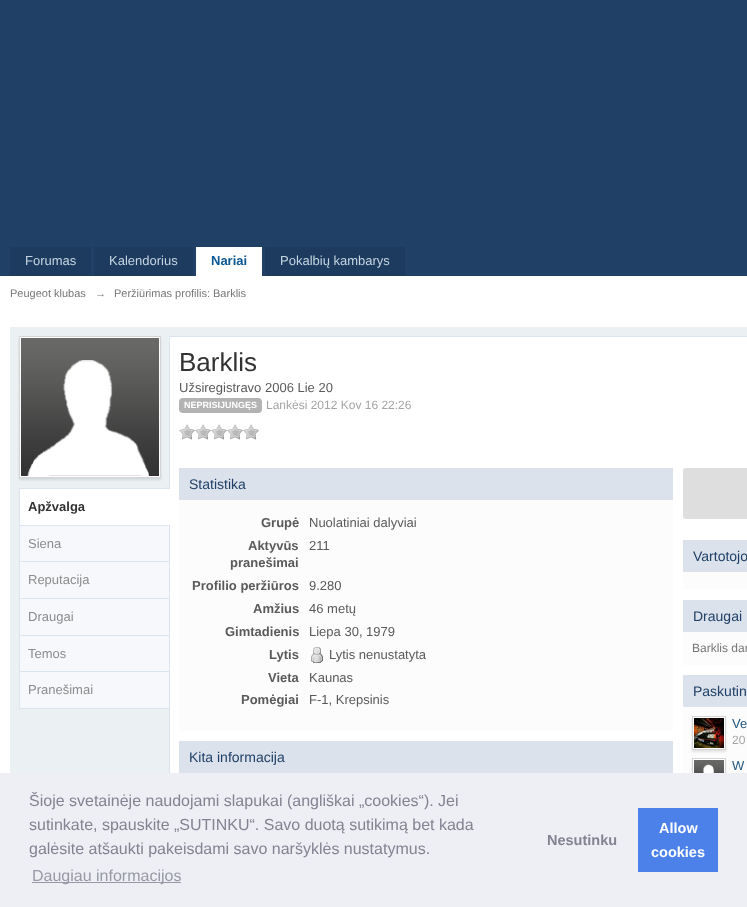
<svg xmlns="http://www.w3.org/2000/svg" width="747" height="907">
<rect width="100%" height="100%" fill="#204066"/>
<rect x="10" y="247" width="81" height="29" fill="#1c3b5f"/>
<text x="25" y="265" style="font-family:Liberation Sans;font-size:13px;fill:#c5d5e2">Forumas</text>
<rect x="94" y="247" width="99" height="29" fill="#1c3b5f"/>
<text x="109" y="265" style="font-family:Liberation Sans;font-size:13px;fill:#c5d5e2">Kalendorius</text>
<rect x="196" y="247" width="66" height="29" fill="#fff"/>
<text x="211" y="265" style="font-family:Liberation Sans;font-size:13px;font-weight:bold;fill:#0b5794">Nariai</text>
<rect x="265" y="247" width="140" height="29" fill="#1c3b5f"/>
<text x="280" y="265" style="font-family:Liberation Sans;font-size:13px;fill:#c5d5e2">Pokalbių kambarys</text>
<rect y="276" width="747" height="497" fill="#fff"/>
<text x="10" y="297" style="font-family:Liberation Sans;font-size:11px;fill:#777">Peugeot klubas</text>
<text x="95" y="297" style="font-family:Liberation Sans;font-size:11px;fill:#777">→</text>
<text x="114" y="297" style="font-family:Liberation Sans;font-size:11px;fill:#777">Peržiūrimas profilis: Barklis</text>
<rect x="10" y="327" width="737" height="446" fill="#ebf0f3"/>
<rect x="19" y="338" width="142" height="142" fill="#0000001a" filter="blur(1px)"/>
<rect x="19.5" y="336.5" width="141" height="141" fill="#fff" stroke="#d5d5d5"/>
<image x="21" y="338" width="138" height="138" href="media/1.png"/>
<rect x="19" y="488" width="150" height="1" fill="#dbe4ef"/>
<rect x="19" y="488" width="1" height="221" fill="#dbe4ef"/>
<rect x="20" y="525" width="149" height="1" fill="#dbe4ef"/>
<rect x="170" y="337" width="577" height="436" fill="#fff"/>
<rect x="169.5" y="336.5" width="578" height="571" fill="none" stroke="#dbe4ef"/>
<rect x="20" y="489" width="150" height="36" fill="#fff"/>
<text x="28" y="511" style="font-family:Liberation Sans;font-size:13px;font-weight:bold;fill:#323232">Apžvalga</text>
<rect x="20" y="526" width="149" height="35" fill="#f6f8fb"/>
<rect x="20" y="561" width="149" height="1" fill="#dbe4ef"/>
<text x="28" y="548" style="font-family:Liberation Sans;font-size:13px;fill:#8d8d8d">Siena</text>
<rect x="20" y="562" width="149" height="36" fill="#f6f8fb"/>
<rect x="20" y="598" width="149" height="1" fill="#dbe4ef"/>
<text x="28" y="584" style="font-family:Liberation Sans;font-size:13px;fill:#8d8d8d">Reputacija</text>
<rect x="20" y="599" width="149" height="36" fill="#f6f8fb"/>
<rect x="20" y="635" width="149" height="1" fill="#dbe4ef"/>
<text x="28" y="621" style="font-family:Liberation Sans;font-size:13px;fill:#8d8d8d">Draugai</text>
<rect x="20" y="636" width="149" height="35" fill="#f6f8fb"/>
<rect x="20" y="671" width="149" height="1" fill="#dbe4ef"/>
<text x="28" y="658" style="font-family:Liberation Sans;font-size:13px;fill:#8d8d8d">Temos</text>
<rect x="20" y="672" width="149" height="36" fill="#f6f8fb"/>
<rect x="20" y="708" width="149" height="1" fill="#dbe4ef"/>
<text x="28" y="694" style="font-family:Liberation Sans;font-size:13px;fill:#8d8d8d">Pranešimai</text>
<text x="179" y="371" style="font-family:Liberation Sans;font-size:26px;fill:#323232">Barklis</text>
<text x="179" y="392" style="font-family:Liberation Sans;font-size:13px;fill:#5a5a5a">Užsiregistravo 2006 Lie 20</text>
<rect x="179" y="398" width="83" height="15" rx="4" fill="#b3b3b3"/>
<text x="184" y="408" style="font-family:Liberation Sans;font-size:9px;font-weight:bold;fill:#fff">NEPRISIJUNGĘS</text>
<text x="266" y="409" style="font-family:Liberation Sans;font-size:12px;fill:#a4a4a4">Lankėsi 2012 Kov 16 22:26</text>
<image x="179" y="424" width="16" height="16" href="media/2.png"/>
<image x="195" y="424" width="16" height="16" href="media/2.png"/>
<image x="211" y="424" width="16" height="16" href="media/2.png"/>
<image x="227" y="424" width="16" height="16" href="media/2.png"/>
<image x="243" y="424" width="16" height="16" href="media/2.png"/>
<rect x="179" y="500" width="494" height="231" fill="#fcfcfc"/>
<rect x="179" y="468" width="494" height="32" fill="#dbe2ec"/>
<text x="189" y="489" style="font-family:Liberation Sans;font-size:14px;fill:#204066">Statistika</text>
<text x="261" y="527" style="font-family:Liberation Sans;font-size:13px;font-weight:bold;fill:#5a5a5a">Grupė</text>
<text x="309" y="527" style="font-family:Liberation Sans;font-size:13px;fill:#5a5a5a">Nuolatiniai dalyviai</text>
<text x="248" y="550" style="font-family:Liberation Sans;font-size:13px;font-weight:bold;fill:#5a5a5a">Aktyvūs</text>
<text x="230" y="567" style="font-family:Liberation Sans;font-size:13px;font-weight:bold;fill:#5a5a5a">pranešimai</text>
<text x="309" y="550" style="font-family:Liberation Sans;font-size:13px;fill:#5a5a5a">211</text>
<text x="192" y="590" style="font-family:Liberation Sans;font-size:13px;font-weight:bold;fill:#5a5a5a">Profilio peržiūros</text>
<text x="309" y="590" style="font-family:Liberation Sans;font-size:13px;fill:#5a5a5a">9.280</text>
<text x="253" y="613" style="font-family:Liberation Sans;font-size:13px;font-weight:bold;fill:#5a5a5a">Amžius</text>
<text x="309" y="613" style="font-family:Liberation Sans;font-size:13px;fill:#5a5a5a">46 metų</text>
<text x="225" y="636" style="font-family:Liberation Sans;font-size:13px;font-weight:bold;fill:#5a5a5a">Gimtadienis</text>
<text x="309" y="636" style="font-family:Liberation Sans;font-size:13px;fill:#5a5a5a">Liepa 30, 1979</text>
<text x="269" y="659" style="font-family:Liberation Sans;font-size:13px;font-weight:bold;fill:#5a5a5a">Lytis</text>
<image x="311" y="647" width="12" height="16" href="media/3.png"/>
<text x="329" y="659" style="font-family:Liberation Sans;font-size:13px;fill:#5a5a5a">Lytis nenustatyta</text>
<text x="268" y="682" style="font-family:Liberation Sans;font-size:13px;font-weight:bold;fill:#5a5a5a">Vieta</text>
<text x="309" y="682" style="font-family:Liberation Sans;font-size:13px;fill:#5a5a5a">Kaunas</text>
<text x="241" y="704" style="font-family:Liberation Sans;font-size:13px;font-weight:bold;fill:#5a5a5a">Pomėgiai</text>
<text x="309" y="704" style="font-family:Liberation Sans;font-size:13px;fill:#5a5a5a">F-1, Krepsinis</text>
<rect x="179" y="741" width="494" height="32" fill="#dbe2ec"/>
<text x="189" y="762" style="font-family:Liberation Sans;font-size:14px;fill:#204066">Kita informacija</text>
<rect x="683" y="468" width="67" height="51" rx="3" fill="#dedede"/>
<rect x="683" y="572" width="64" height="18" fill="#fcfcfc"/>
<rect x="683" y="540" width="64" height="32" fill="#dbe2ec"/>
<text x="693" y="561" style="font-family:Liberation Sans;font-size:14px;fill:#204066">Vartotojo</text>
<rect x="683" y="632" width="64" height="33" fill="#fcfcfc"/>
<rect x="683" y="600" width="64" height="32" fill="#dbe2ec"/>
<text x="693" y="621" style="font-family:Liberation Sans;font-size:14px;fill:#204066">Draugai</text>
<text x="692" y="652" style="font-family:Liberation Sans;font-size:12px;fill:#777">Barklis dar</text>
<rect x="683" y="707" width="64" height="66" fill="#fcfcfc"/>
<rect x="683" y="675" width="64" height="32" fill="#dbe2ec"/>
<text x="693" y="696" style="font-family:Liberation Sans;font-size:14px;fill:#204066">Paskutin</text>
<rect x="692" y="718" width="34" height="34" fill="#0000001a" filter="blur(1px)"/>
<rect x="692.5" y="716.5" width="33" height="33" fill="#fff" stroke="#d5d5d5"/>
<image x="694" y="718" width="30" height="30" href="media/4.png"/>
<text x="732" y="728" style="font-family:Liberation Sans;font-size:13px;fill:#225985">Ve</text>
<text x="732" y="744" style="font-family:Liberation Sans;font-size:12px;fill:#a4a4a4">20</text>
<rect x="692" y="760" width="34" height="34" fill="#0000001a" filter="blur(1px)"/>
<rect x="693" y="759" width="32" height="14" fill="#fff"/>
<rect x="692.5" y="758.5" width="33" height="33" fill="none" stroke="#d5d5d5"/>
<image x="694" y="760" width="30" height="13" href="media/5.png"/>
<text x="732" y="770" style="font-family:Liberation Sans;font-size:13px;fill:#225985">W</text>
<rect y="773" width="747" height="134" fill="#edeff5"/>
<text x="29" y="806" style="font-family:Liberation Sans;font-size:16px;fill:#838391">Šioje svetainėje naudojami slapukai (angliškai „cookies“). Jei</text>
<text x="29" y="830" style="font-family:Liberation Sans;font-size:16px;fill:#838391">sutinkate, spauskite „SUTINKU“. Savo duotą sutikimą bet kada</text>
<text x="29" y="854" style="font-family:Liberation Sans;font-size:16px;fill:#838391">galėsite atšaukti pakeisdami savo naršyklės nustatymus.</text>
<rect x="32" y="882" width="149" height="1" fill="#9899a5"/>
<text x="32" y="881" style="font-family:Liberation Sans;font-size:16px;fill:#9899a5">Daugiau informacijos</text>
<text x="547" y="845" style="font-family:Liberation Sans;font-size:14.5px;font-weight:bold;fill:#838391">Nesutinku</text>
<rect x="638" y="808" width="80" height="64" fill="#4b81e8"/>
<text x="659" y="833" style="font-family:Liberation Sans;font-size:14.5px;font-weight:bold;fill:#fff">Allow</text>
<text x="651" y="857" style="font-family:Liberation Sans;font-size:14.5px;font-weight:bold;fill:#fff">cookies</text>
</svg>
